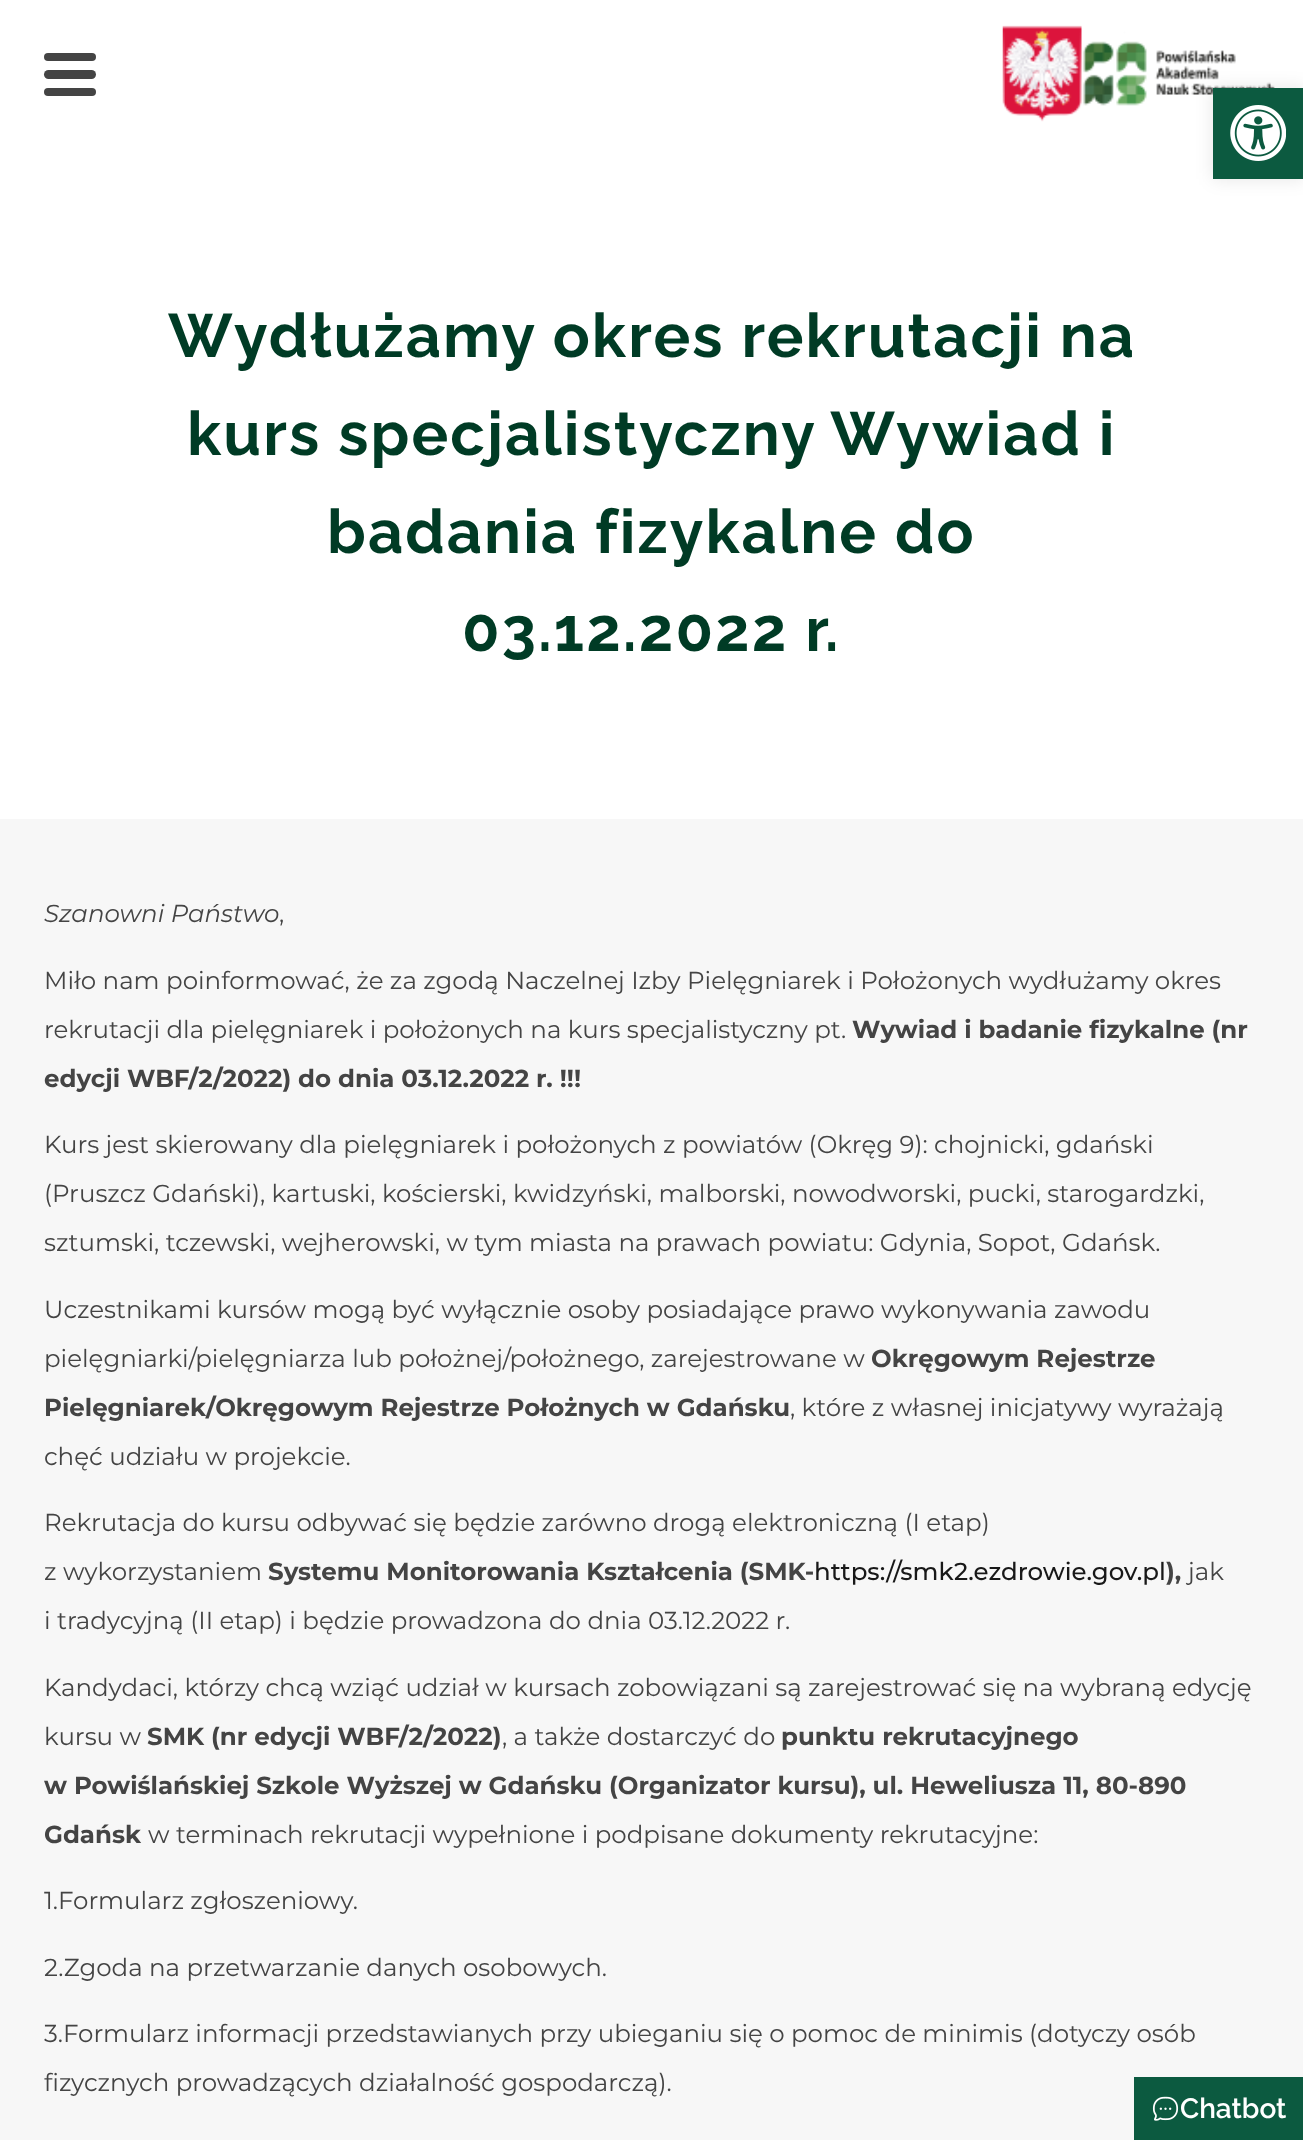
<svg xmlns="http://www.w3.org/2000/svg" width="1303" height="2140">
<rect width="100%" height="100%" fill="#fff"/>
<image x="1002" y="25" width="273" height="97" href="media/2.png"/>
<rect x="1213" y="88" width="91" height="91" fill="#0000001a" filter="blur(9px)"/>
<rect x="1213" y="88" width="90" height="91" fill="#0c5a40"/>
<image x="1230" y="105" width="56" height="56" href="media/1.png"/>
<rect x="44" y="53" width="52" height="8" rx="4" fill="#444"/>
<rect x="44" y="70" width="52" height="9" rx="4.5" fill="#444"/>
<rect x="44" y="88" width="52" height="8" rx="4" fill="#444"/>
<text x="168" y="357" style="font-family:Raleway;font-size:61.25px;font-weight:bold;letter-spacing:2.1px;fill:#003b25">Wydłużamy okres rekrutacji na</text>
<text x="187" y="455" style="font-family:Raleway;font-size:61.25px;font-weight:bold;letter-spacing:2.1px;fill:#003b25">kurs specjalistyczny Wywiad i</text>
<text x="327" y="553" style="font-family:Raleway;font-size:61.25px;font-weight:bold;letter-spacing:2.1px;fill:#003b25">badania fizykalne do</text>
<text x="462" y="651" style="font-family:Raleway;font-size:61.25px;font-weight:bold;letter-spacing:2.1px;fill:#003b25">03.12.2022 r.</text>
<rect y="819" width="1303" height="1321" fill="#f7f7f7"/>
<text x="44" y="922" style="font-family:Montserrat;font-size:24.5px;font-style:italic;fill:#444">Szanowni Państwo</text>
<text x="279" y="922" style="font-family:Montserrat;font-size:24.5px;fill:#444">,</text>
<text x="44" y="989" style="font-family:Montserrat;font-size:24.5px;fill:#444">Miło nam poinformować, że za zgodą Naczelnej Izby Pielęgniarek i Położonych wydłużamy okres</text>
<text x="44" y="1038" style="font-family:Montserrat;font-size:24.5px;fill:#444">rekrutacji dla pielęgniarek i położonych na kurs specjalistyczny pt.</text>
<text x="852" y="1038" style="font-family:Montserrat;font-size:24.5px;font-weight:bold;fill:#444">Wywiad i badanie fizykalne (nr</text>
<text x="44" y="1087" style="font-family:Montserrat;font-size:24.5px;font-weight:bold;fill:#444">edycji WBF/2/2022) do dnia 03.12.2022 r. !!!</text>
<text x="44" y="1153" style="font-family:Montserrat;font-size:24.5px;fill:#444">Kurs jest skierowany dla pielęgniarek i położonych z powiatów (Okręg 9): chojnicki, gdański</text>
<text x="44" y="1202" style="font-family:Montserrat;font-size:24.5px;fill:#444">(Pruszcz Gdański), kartuski, kościerski, kwidzyński, malborski, nowodworski, pucki, starogardzki,</text>
<text x="44" y="1251" style="font-family:Montserrat;font-size:24.5px;fill:#444">sztumski, tczewski, wejherowski, w tym miasta na prawach powiatu: Gdynia, Sopot, Gdańsk.</text>
<text x="44" y="1318" style="font-family:Montserrat;font-size:24.5px;fill:#444">Uczestnikami kursów mogą być wyłącznie osoby posiadające prawo wykonywania zawodu</text>
<text x="44" y="1367" style="font-family:Montserrat;font-size:24.5px;fill:#444">pielęgniarki/pielęgniarza lub położnej/położnego, zarejestrowane w</text>
<text x="871" y="1367" style="font-family:Montserrat;font-size:24.5px;font-weight:bold;fill:#444">Okręgowym Rejestrze</text>
<text x="44" y="1416" style="font-family:Montserrat;font-size:24.5px;font-weight:bold;fill:#444">Pielęgniarek/Okręgowym Rejestrze Położnych w Gdańsku</text>
<text x="790" y="1416" style="font-family:Montserrat;font-size:24.5px;fill:#444">, które z własnej inicjatywy wyrażają</text>
<text x="44" y="1465" style="font-family:Montserrat;font-size:24.5px;fill:#444">chęć udziału w projekcie.</text>
<text x="44" y="1531" style="font-family:Montserrat;font-size:24.5px;fill:#444">Rekrutacja do kursu odbywać się będzie zarówno drogą elektroniczną (I etap)</text>
<text x="44" y="1580" style="font-family:Montserrat;font-size:24.5px;fill:#444">z wykorzystaniem</text>
<text x="268" y="1580" style="font-family:Montserrat;font-size:24.5px;font-weight:bold;fill:#444">Systemu Monitorowania Kształcenia (SMK-</text>
<text x="814" y="1580" style="font-family:Montserrat;font-size:24.5px;font-weight:500;fill:#181818">https://smk2.ezdrowie.gov.pl</text>
<text x="1166" y="1580" style="font-family:Montserrat;font-size:24.5px;font-weight:bold;fill:#444">),</text>
<text x="1188" y="1580" style="font-family:Montserrat;font-size:24.5px;fill:#444">jak</text>
<text x="44" y="1629" style="font-family:Montserrat;font-size:24.5px;fill:#444">i tradycyjną (II etap) i będzie prowadzona do dnia 03.12.2022 r.</text>
<text x="44" y="1696" style="font-family:Montserrat;font-size:24.5px;fill:#444">Kandydaci, którzy chcą wziąć udział w kursach zobowiązani są zarejestrować się na wybraną edycję</text>
<text x="44" y="1745" style="font-family:Montserrat;font-size:24.5px;fill:#444">kursu w</text>
<text x="147" y="1745" style="font-family:Montserrat;font-size:24.5px;font-weight:bold;fill:#444">SMK (nr edycji WBF/2/2022)</text>
<text x="502" y="1745" style="font-family:Montserrat;font-size:24.5px;fill:#444">, a także dostarczyć do</text>
<text x="781" y="1745" style="font-family:Montserrat;font-size:24.5px;font-weight:bold;fill:#444">punktu rekrutacyjnego</text>
<text x="44" y="1794" style="font-family:Montserrat;font-size:24.5px;font-weight:bold;fill:#444">w Powiślańskiej Szkole Wyższej w Gdańsku (Organizator kursu), ul. Heweliusza 11, 80-890</text>
<text x="44" y="1843" style="font-family:Montserrat;font-size:24.5px;font-weight:bold;fill:#444">Gdańsk</text>
<text x="148" y="1843" style="font-family:Montserrat;font-size:24.5px;fill:#444">w terminach rekrutacji wypełnione i podpisane dokumenty rekrutacyjne:</text>
<text x="44" y="1909" style="font-family:Montserrat;font-size:24.5px;fill:#444">1.Formularz zgłoszeniowy.</text>
<text x="44" y="1976" style="font-family:Montserrat;font-size:24.5px;fill:#444">2.Zgoda na przetwarzanie danych osobowych.</text>
<text x="44" y="2042" style="font-family:Montserrat;font-size:24.5px;fill:#444">3.Formularz informacji przedstawianych przy ubieganiu się o pomoc de minimis (dotyczy osób</text>
<text x="44" y="2091" style="font-family:Montserrat;font-size:24.5px;fill:#444">fizycznych prowadzących działalność gospodarczą).</text>
<rect x="1134" y="2077" width="169" height="63" fill="#0c5a40"/>
<image x="1152" y="2096" width="27" height="25" href="media/3.png"/>
<text x="1180" y="2118" style="font-family:Raleway;font-size:28px;font-weight:600;fill:#fff">Chatbot</text>
</svg>
